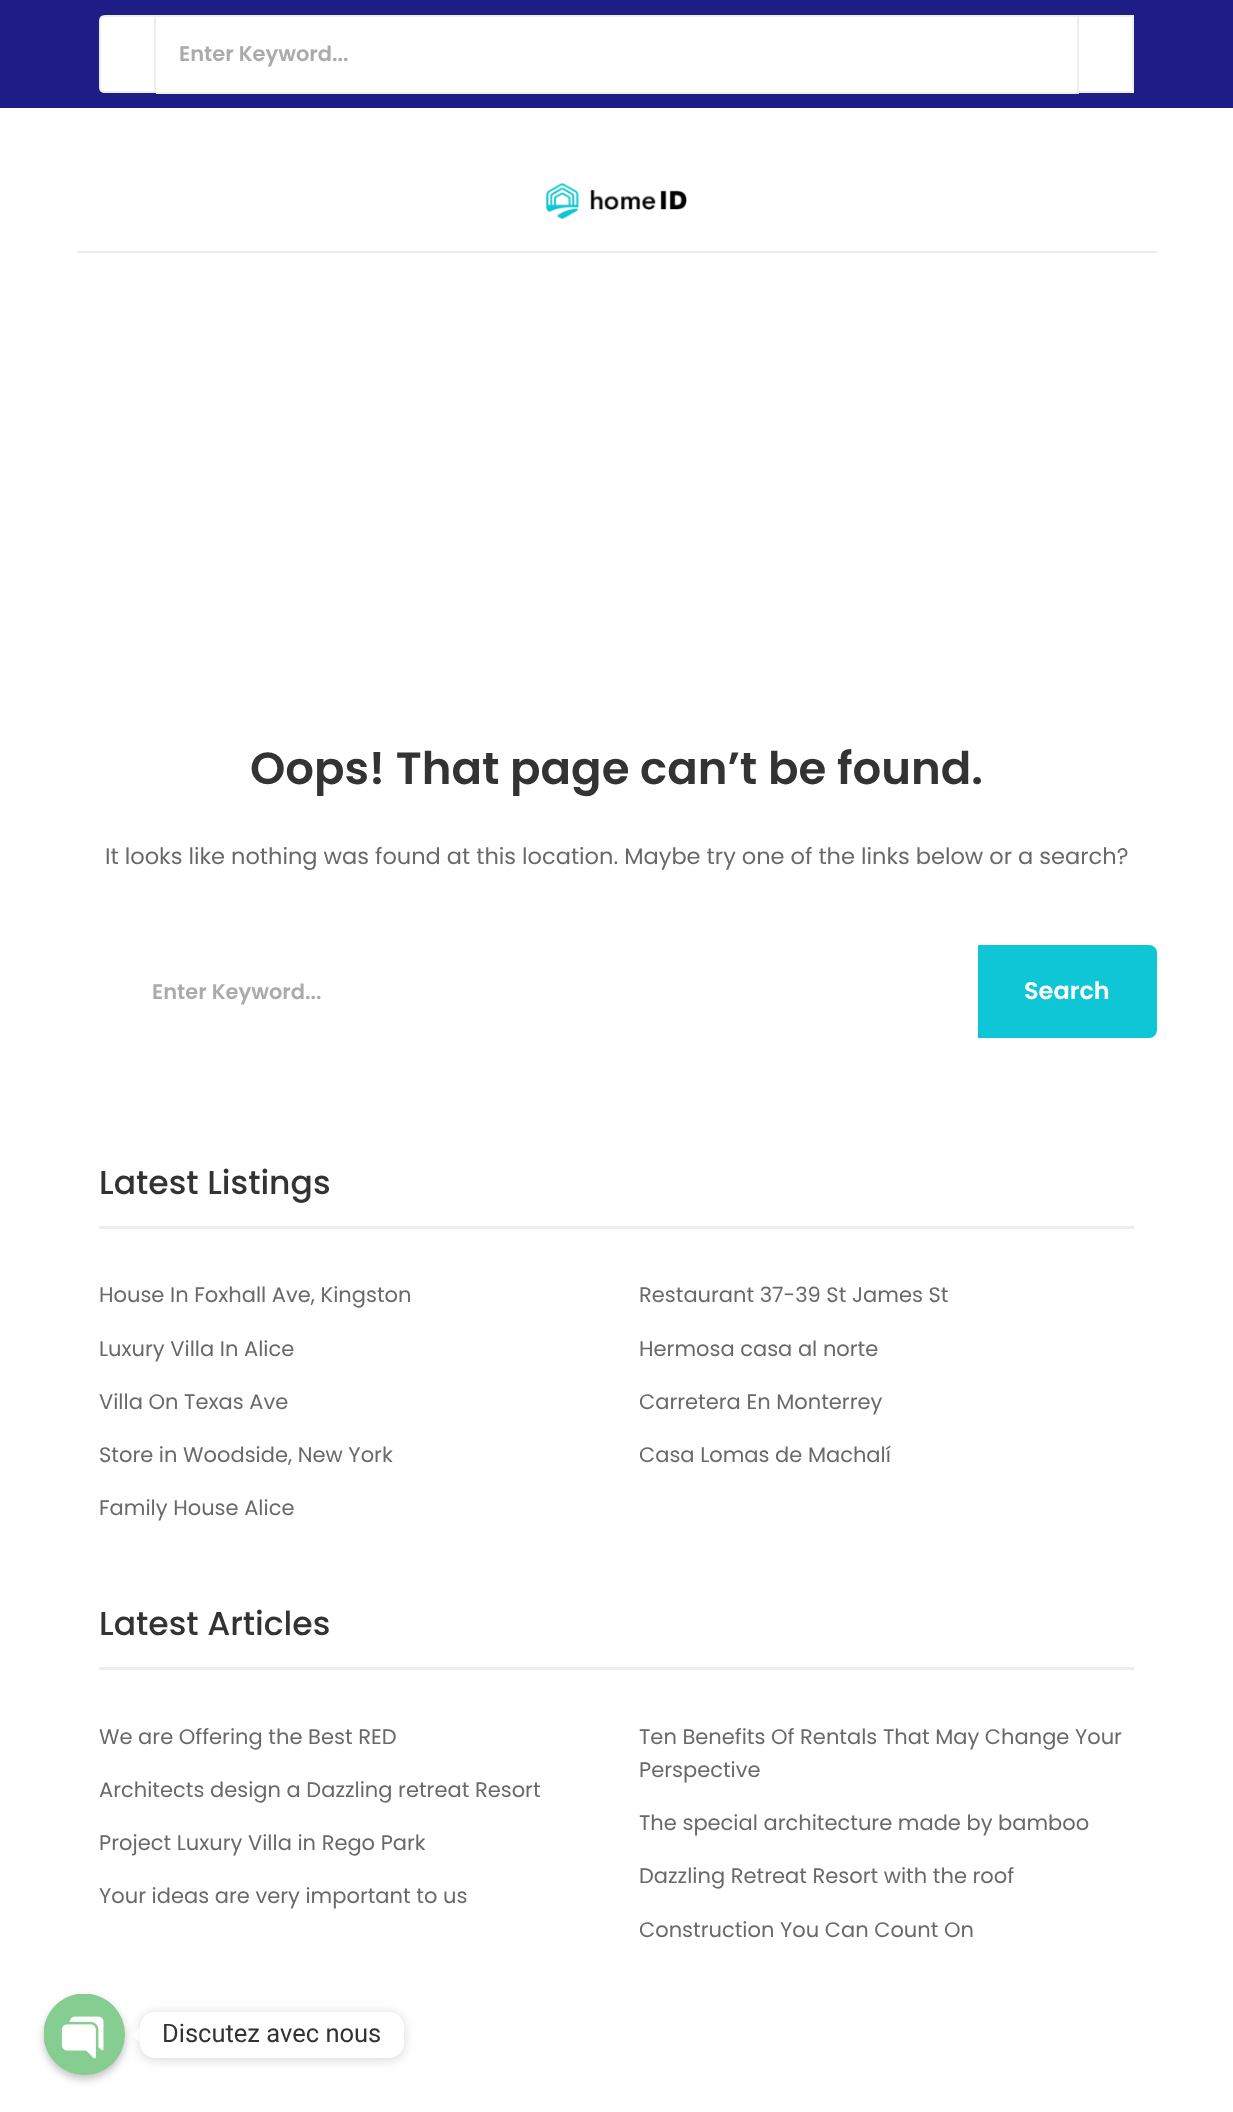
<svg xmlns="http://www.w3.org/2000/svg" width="1233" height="2112">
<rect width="100%" height="100%" fill="#fff"/>
<rect width="1233" height="108" fill="#1e1d85"/>
<path d="M105 16h50v76h-50c-3 0-5-2-5-5v-66c0-3 2-5 5-5z" fill="#fff" stroke="#eee" stroke-width="2"/>
<rect x="156" y="17" width="921" height="75" fill="#fff"/>
<rect x="156" y="15" width="923" height="2" fill="#eee"/>
<rect x="156" y="92" width="923" height="2" fill="#eee"/>
<text x="179" y="61" style="font-family:Poppins;font-size:21px;font-weight:600;fill:#ababab">Enter Keyword...</text>
<rect x="1078" y="16" width="55" height="76" fill="#fff" stroke="#eee" stroke-width="2"/>
<image x="546" y="183" width="141" height="36" href="media/1.png"/>
<rect x="77" y="251" width="1080" height="2" fill="#ededed"/>
<text x="250" y="784" style="font-family:Poppins;font-size:45px;font-weight:600;fill:#333">Oops! That page can’t be found.</text>
<text x="105" y="864" style="font-family:Poppins;font-size:22.5px;fill:#696969">It looks like nothing was found at this location. Maybe try one of the links below or a search?</text>
<text x="152" y="999" style="font-family:Poppins;font-size:21px;font-weight:600;fill:#ababab">Enter Keyword...</text>
<path d="M979 946h170c4 0 7 3 7 7v77c0 4-3 7-7 7h-170z" fill="#0ec6d5" stroke="#0ec6d5" stroke-width="2"/>
<text x="1024" y="999" style="font-family:Poppins;font-size:24px;font-weight:600;fill:#fff">Search</text>
<text x="99" y="1194" style="font-family:Poppins;font-size:33px;font-weight:500;fill:#333">Latest Listings</text>
<rect x="99" y="1226" width="1035" height="3" fill="#ededed"/>
<text x="99" y="1302" style="font-family:Poppins;font-size:21px;fill:#696969">House In Foxhall Ave, Kingston</text>
<text x="99" y="1356" style="font-family:Poppins;font-size:21px;fill:#696969">Luxury Villa In Alice</text>
<text x="99" y="1409" style="font-family:Poppins;font-size:21px;fill:#696969">Villa On Texas Ave</text>
<text x="99" y="1462" style="font-family:Poppins;font-size:21px;fill:#696969">Store in Woodside, New York</text>
<text x="99" y="1515" style="font-family:Poppins;font-size:21px;fill:#696969">Family House Alice</text>
<text x="639" y="1302" style="font-family:Poppins;font-size:21px;fill:#696969">Restaurant 37-39 St James St</text>
<text x="639" y="1356" style="font-family:Poppins;font-size:21px;fill:#696969">Hermosa casa al norte</text>
<text x="639" y="1409" style="font-family:Poppins;font-size:21px;fill:#696969">Carretera En Monterrey</text>
<text x="639" y="1462" style="font-family:Poppins;font-size:21px;fill:#696969">Casa Lomas de Machalí</text>
<text x="99" y="1635" style="font-family:Poppins;font-size:33px;font-weight:500;fill:#333">Latest Articles</text>
<rect x="99" y="1667" width="1035" height="3" fill="#ededed"/>
<text x="99" y="1744" style="font-family:Poppins;font-size:21px;fill:#696969">We are Offering the Best RED</text>
<text x="99" y="1797" style="font-family:Poppins;font-size:21px;fill:#696969">Architects design a Dazzling retreat Resort</text>
<text x="99" y="1850" style="font-family:Poppins;font-size:21px;fill:#696969">Project Luxury Villa in Rego Park</text>
<text x="99" y="1903" style="font-family:Poppins;font-size:21px;fill:#696969">Your ideas are very important to us</text>
<text x="639" y="1744" style="font-family:Poppins;font-size:21px;fill:#696969">Ten Benefits Of Rentals That May Change Your</text>
<text x="639" y="1777" style="font-family:Poppins;font-size:21px;fill:#696969">Perspective</text>
<text x="639" y="1830" style="font-family:Poppins;font-size:21px;fill:#696969">The special architecture made by bamboo</text>
<text x="639" y="1883" style="font-family:Poppins;font-size:21px;fill:#696969">Dazzling Retreat Resort with the roof</text>
<text x="639" y="1937" style="font-family:Poppins;font-size:21px;fill:#696969">Construction You Can Count On</text>
<rect x="140" y="2013" width="264" height="47" rx="15" fill="#00000026" filter="blur(6px)"/>
<path d="M139.5 2027v15l-7.5-7z" fill="#fff"/>
<rect x="44" y="1998" width="81" height="81" rx="40.5" fill="#00000040" filter="blur(4.5px)"/>
<circle cx="84.5" cy="2034.5" r="40.5" fill="#86cd91"/>
<image x="44" y="1994" width="79" height="76" href="media/2.png"/>
<rect x="140" y="2012" width="264" height="46" rx="15" fill="#fff"/>
<text x="162" y="2042" style="font-family:Roboto;font-size:25.5px;fill:#333">Discutez avec nous</text>
</svg>
